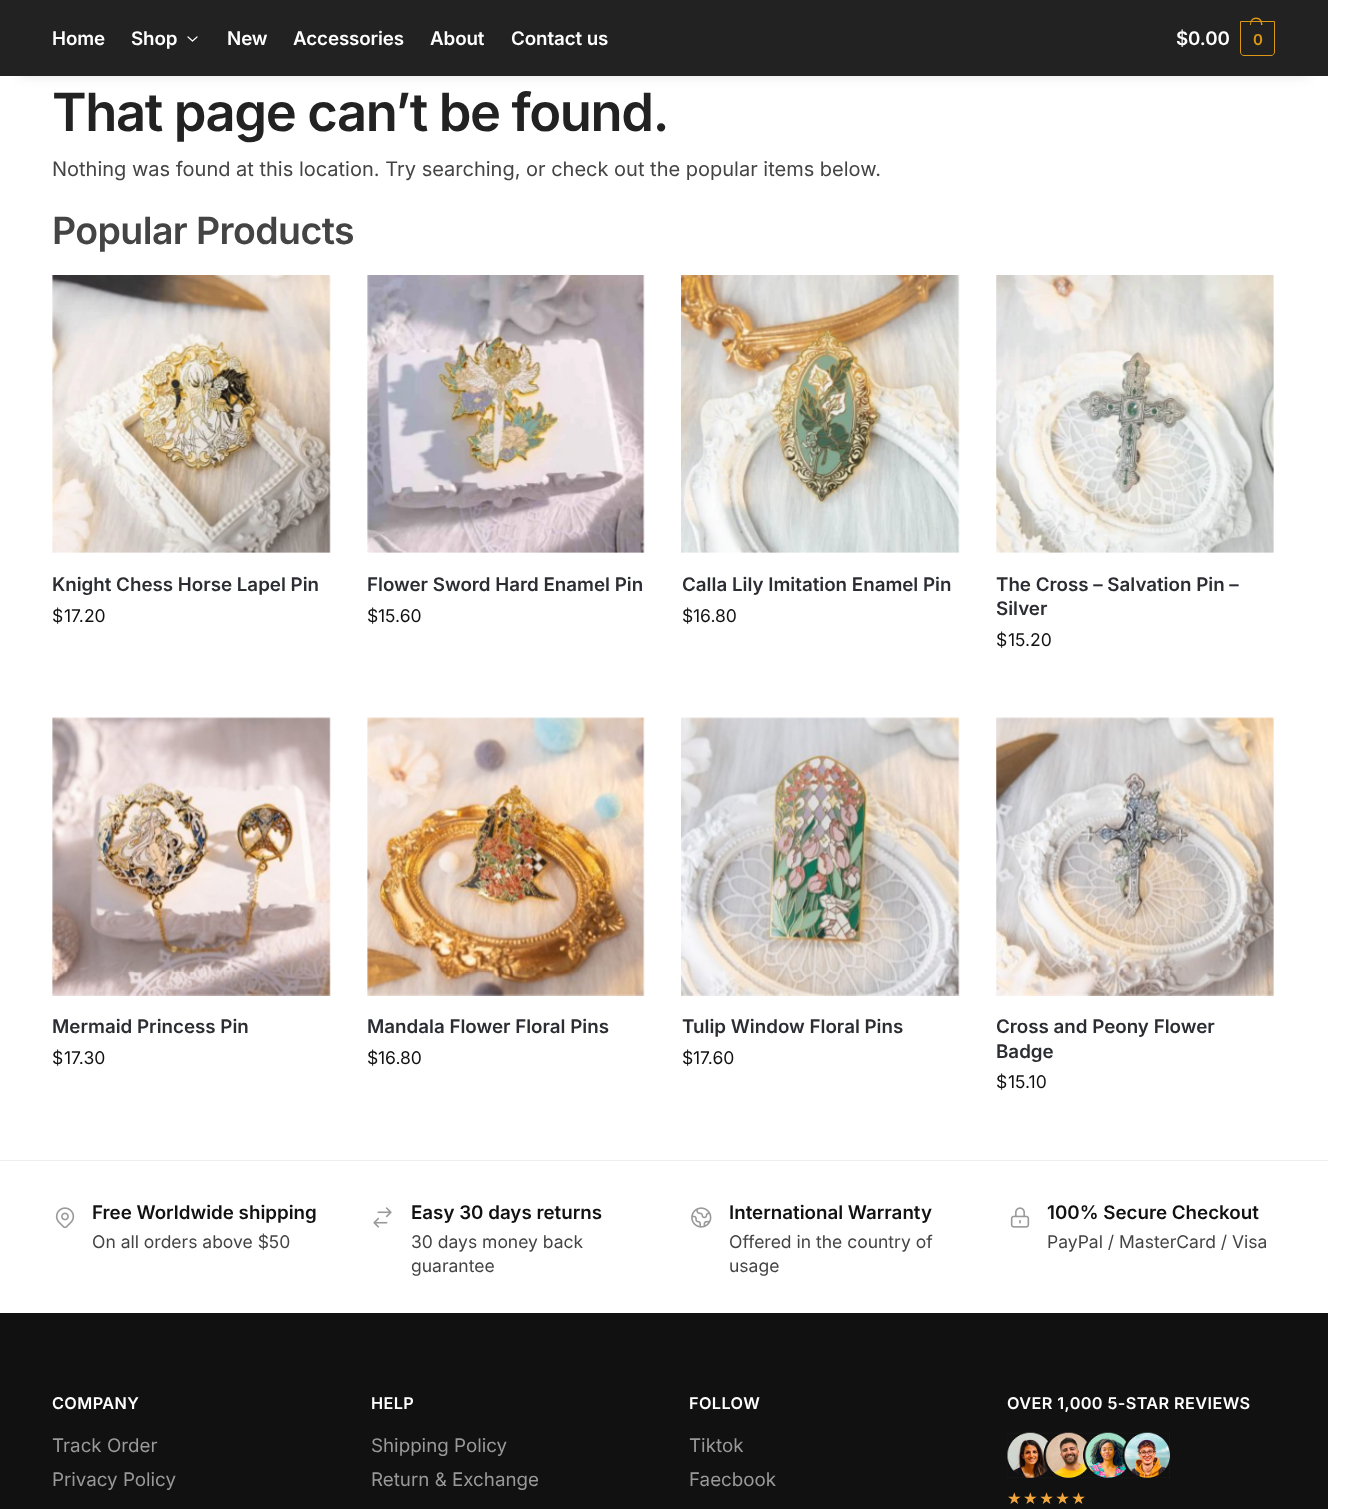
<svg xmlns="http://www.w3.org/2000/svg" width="1346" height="1509">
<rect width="100%" height="100%" fill="#fff"/>
<rect x="19" y="38" width="1290" height="38" fill="#0000001a" filter="blur(6px)"/>
<rect width="1328" height="76" fill="#222"/>
<text x="52" y="45" style="font-family:Inter;font-size:18.75px;font-weight:600;letter-spacing:-0.1px;fill:#fff">Home</text>
<text x="131" y="45" style="font-family:Inter;font-size:18.75px;font-weight:600;letter-spacing:-0.1px;fill:#fff">Shop</text>
<path d="M197 37l-4.5 4l-4.5-4" fill="none" stroke="#fff" stroke-width="1.2" stroke-linecap="round" stroke-linejoin="round"/>
<text x="227" y="45" style="font-family:Inter;font-size:18.75px;font-weight:600;letter-spacing:-0.1px;fill:#fff">New</text>
<text x="293" y="45" style="font-family:Inter;font-size:18.75px;font-weight:600;letter-spacing:-0.1px;fill:#fff">Accessories</text>
<text x="430" y="45" style="font-family:Inter;font-size:18.75px;font-weight:600;letter-spacing:-0.1px;fill:#fff">About</text>
<text x="511" y="45" style="font-family:Inter;font-size:18.75px;font-weight:600;letter-spacing:-0.1px;fill:#fff">Contact us</text>
<text x="1176" y="45" style="font-family:Inter;font-size:18.75px;font-weight:600;letter-spacing:-0.1px;fill:#fff">$0.00</text>
<path d="M1240.5 21.5h34v30.5c0 2-1.5 3.5-3.5 3.5h-27c-2 0-3.5-1.5-3.5-3.5z" fill="none" stroke="#dc9814"/>
<path d="M1256 17.5c4.5 0 6.5 3.5 6.5 7.5h-12.5c0-4 2-7.5 6-7.5zm0 1.5c4 0 5 3 5 6h-10c0-3 1.5-6 5-6z" fill="#dc9814" fill-rule="evenodd"/>
<text x="1253" y="45" style="font-family:Inter;font-size:15px;font-weight:600;letter-spacing:-1px;fill:#dc9814">0</text>
<text x="52" y="131" style="font-family:Inter;font-size:52.5px;font-weight:600;letter-spacing:-1.4px;fill:#222">That page can’t be found.</text>
<text x="52" y="176" style="font-family:Inter;font-size:20px;fill:#444">Nothing was found at this location. Try searching, or check out the popular items below.</text>
<text x="52" y="244" style="font-family:Inter;font-size:37.5px;font-weight:600;letter-spacing:-0.6px;fill:#444">Popular Products</text>
<image x="52" y="275" width="279" height="278" href="media/1.png"/>
<text x="52" y="591" style="font-family:Inter;font-size:18.75px;font-weight:600;fill:#2c2d33">Knight Chess Horse Lapel Pin</text>
<text x="52" y="622" style="font-family:Inter;font-size:17.5px;fill:#111">$</text>
<text x="64" y="622" style="font-family:Inter;font-size:17.5px;fill:#111">17.20</text>
<image x="367" y="275" width="278" height="278" href="media/2.png"/>
<text x="367" y="591" style="font-family:Inter;font-size:18.75px;font-weight:600;fill:#2c2d33">Flower Sword Hard Enamel Pin</text>
<text x="367" y="622" style="font-family:Inter;font-size:17.5px;fill:#111">$</text>
<text x="378" y="622" style="font-family:Inter;font-size:17.5px;fill:#111">15.60</text>
<image x="681" y="275" width="279" height="278" href="media/3.png"/>
<text x="682" y="591" style="font-family:Inter;font-size:18.75px;font-weight:600;fill:#2c2d33">Calla Lily Imitation Enamel Pin</text>
<text x="682" y="622" style="font-family:Inter;font-size:17.5px;fill:#111">$</text>
<text x="693" y="622" style="font-family:Inter;font-size:17.5px;fill:#111">16.80</text>
<image x="996" y="275" width="278" height="278" href="media/4.png"/>
<text x="996" y="591" style="font-family:Inter;font-size:18.75px;font-weight:600;fill:#2c2d33">The Cross – Salvation Pin –</text>
<text x="996" y="615" style="font-family:Inter;font-size:18.75px;font-weight:600;fill:#2c2d33">Silver</text>
<text x="996" y="646" style="font-family:Inter;font-size:17.5px;fill:#111">$</text>
<text x="1008" y="646" style="font-family:Inter;font-size:17.5px;fill:#111">15.20</text>
<image x="52" y="717" width="279" height="279" href="media/5.png"/>
<text x="52" y="1033" style="font-family:Inter;font-size:18.75px;font-weight:600;fill:#2c2d33">Mermaid Princess Pin</text>
<text x="52" y="1064" style="font-family:Inter;font-size:17.5px;fill:#111">$</text>
<text x="64" y="1064" style="font-family:Inter;font-size:17.5px;fill:#111">17.30</text>
<image x="367" y="717" width="278" height="279" href="media/6.png"/>
<text x="367" y="1033" style="font-family:Inter;font-size:18.75px;font-weight:600;fill:#2c2d33">Mandala Flower Floral Pins</text>
<text x="367" y="1064" style="font-family:Inter;font-size:17.5px;fill:#111">$</text>
<text x="378" y="1064" style="font-family:Inter;font-size:17.5px;fill:#111">16.80</text>
<image x="681" y="717" width="279" height="279" href="media/7.png"/>
<text x="682" y="1033" style="font-family:Inter;font-size:18.75px;font-weight:600;fill:#2c2d33">Tulip Window Floral Pins</text>
<text x="682" y="1064" style="font-family:Inter;font-size:17.5px;fill:#111">$</text>
<text x="693" y="1064" style="font-family:Inter;font-size:17.5px;fill:#111">17.60</text>
<image x="996" y="717" width="278" height="279" href="media/8.png"/>
<text x="996" y="1033" style="font-family:Inter;font-size:18.75px;font-weight:600;fill:#2c2d33">Cross and Peony Flower</text>
<text x="996" y="1058" style="font-family:Inter;font-size:18.75px;font-weight:600;fill:#2c2d33">Badge</text>
<text x="996" y="1088" style="font-family:Inter;font-size:17.5px;fill:#111">$</text>
<text x="1008" y="1088" style="font-family:Inter;font-size:17.5px;fill:#111">15.10</text>
<rect y="1160" width="1328" height="1" fill="#eee"/>
<text x="92" y="1219" style="font-family:Inter;font-size:18.75px;font-weight:600;fill:#111">Free Worldwide shipping</text>
<image x="55" y="1207" width="20" height="22" href="media/9.png"/>
<text x="92" y="1248" style="font-family:Inter;font-size:17.5px;fill:#444">On all orders above $50</text>
<text x="411" y="1219" style="font-family:Inter;font-size:18.75px;font-weight:600;fill:#111">Easy 30 days returns</text>
<image x="373" y="1207" width="19" height="21" href="media/10.png"/>
<text x="411" y="1248" style="font-family:Inter;font-size:17.5px;fill:#444">30 days money back</text>
<text x="411" y="1272" style="font-family:Inter;font-size:17.5px;fill:#444">guarantee</text>
<text x="729" y="1219" style="font-family:Inter;font-size:18.75px;font-weight:600;fill:#111">International Warranty</text>
<image x="691" y="1207" width="21" height="21" href="media/11.png"/>
<text x="729" y="1248" style="font-family:Inter;font-size:17.5px;fill:#444">Offered in the country of</text>
<text x="729" y="1272" style="font-family:Inter;font-size:17.5px;fill:#444">usage</text>
<text x="1047" y="1219" style="font-family:Inter;font-size:18.75px;font-weight:600;fill:#111">100% Secure Checkout</text>
<image x="1010" y="1207" width="20" height="21" href="media/12.png"/>
<text x="1047" y="1248" style="font-family:Inter;font-size:17.5px;fill:#444">PayPal / MasterCard / Visa</text>
<rect y="1313" width="1328" height="196" fill="#111"/>
<text x="52" y="1409" style="font-family:Inter;font-size:16.25px;font-weight:600;letter-spacing:0.4px;fill:#fff">COMPANY</text>
<text x="52" y="1452" style="font-family:Inter;font-size:18.75px;fill:#999">Track Order</text>
<text x="52" y="1486" style="font-family:Inter;font-size:18.75px;fill:#999">Privacy Policy</text>
<text x="371" y="1409" style="font-family:Inter;font-size:16.25px;font-weight:600;letter-spacing:0.4px;fill:#fff">HELP</text>
<text x="371" y="1452" style="font-family:Inter;font-size:18.75px;fill:#999">Shipping Policy</text>
<text x="371" y="1486" style="font-family:Inter;font-size:18.75px;fill:#999">Return &amp; Exchange</text>
<text x="689" y="1409" style="font-family:Inter;font-size:16.25px;font-weight:600;letter-spacing:0.4px;fill:#fff">FOLLOW</text>
<text x="689" y="1452" style="font-family:Inter;font-size:18.75px;fill:#999">Tiktok</text>
<text x="689" y="1486" style="font-family:Inter;font-size:18.75px;fill:#999">Faecbook</text>
<text x="1007" y="1409" style="font-family:Inter;font-size:16.25px;font-weight:600;letter-spacing:0.4px;fill:#fff">OVER 1,000 5-STAR REVIEWS</text>
<image x="1007" y="1432" width="163" height="46" href="media/13.png"/>
<text x="1007" y="1504" style="font-family:DejaVu Sans;font-size:16.25px;letter-spacing:1.5px;fill:#f3a63b">★★★★★</text>
</svg>
